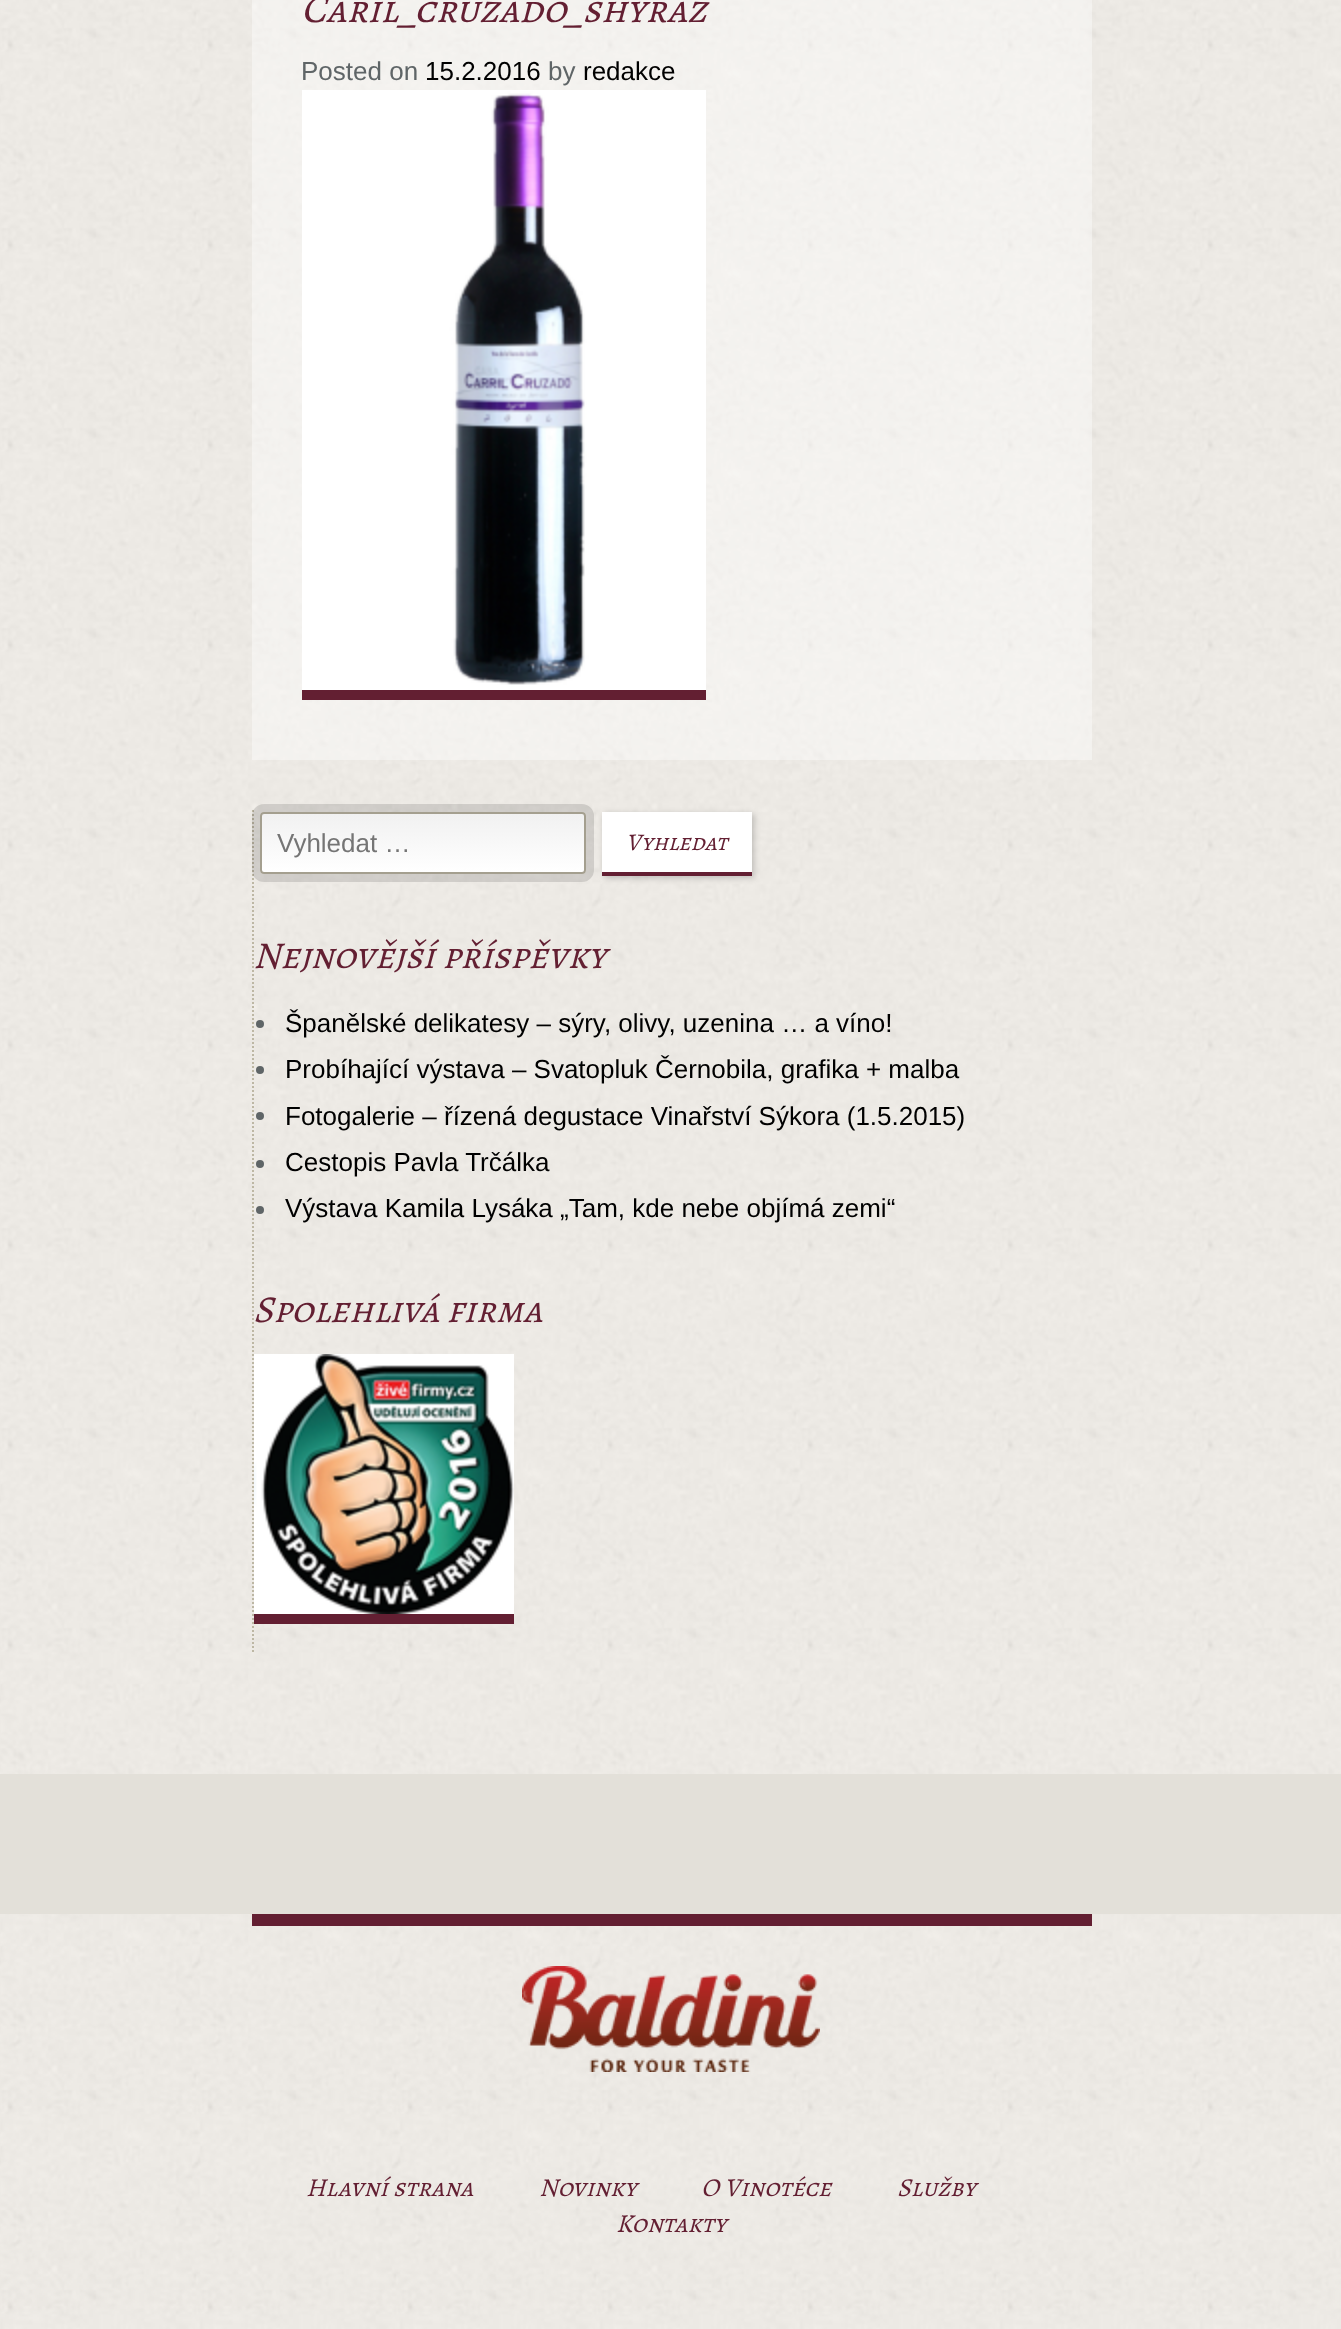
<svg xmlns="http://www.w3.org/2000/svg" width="1341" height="2329">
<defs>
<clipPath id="clip1"><rect x="260" y="812" width="326" height="62" rx="4"/></clipPath>
<linearGradient id="g1" gradientUnits="userSpaceOnUse" x1="423" y1="814" x2="423" y2="872"><stop offset="0" stop-color="#f1f1f1"/><stop offset="1" stop-color="#fff"/></linearGradient>
</defs>
<rect width="100%" height="100%" fill="#fff"/>
<image x="0" y="0" width="1341" height="1774" href="media/1.png"/>
<rect x="252" width="840" height="760" fill="#ffffff66"/>
<text x="301" y="22" style="font-family:Alegreya SC;font-size:40px;font-style:italic;fill:#631f32">Caril_cruzado_shyraz</text>
<text x="301" y="80" style="font-family:Liberation Sans;font-size:26px;fill:#5f6567">Posted on</text>
<text x="425" y="80" style="font-family:Liberation Sans;font-size:26px;fill:#000">15.2.2016</text>
<text x="548" y="80" style="font-family:Liberation Sans;font-size:26px;fill:#5f6567">by</text>
<text x="583" y="80" style="font-family:Liberation Sans;font-size:26px;fill:#000">redakce</text>
<image x="302" y="90" width="404" height="600" href="media/2.png"/>
<rect x="302" y="690" width="404" height="10" fill="#631f32"/>
<path d="M253 810v844" fill="none" stroke="#bdb7a4" stroke-width="2" stroke-dasharray="2 2"/>
<rect x="256" y="808" width="334" height="70" rx="8" fill="none" stroke="#0000001f" stroke-width="8"/>
<g clip-path="url(#clip1)">
<rect x="260" y="814" width="326" height="58" fill="url(#g1)"/>
</g>
<rect x="261" y="813" width="324" height="60" rx="3" fill="none" stroke="#a49f8f" stroke-width="2"/>
<text x="277" y="852" style="font-family:Liberation Sans;font-size:26px;fill:#757575">Vyhledat …</text>
<rect x="604" y="814" width="150" height="64" fill="#00000033" filter="blur(3px)"/>
<rect x="602" y="812" width="150" height="60" fill="#fff"/>
<rect x="602" y="872" width="150" height="4" fill="#631f32"/>
<text x="626" y="850" style="font-family:Alegreya SC;font-size:24px;font-style:italic;fill:#631f32">Vyhledat</text>
<text x="253" y="968" style="font-family:Alegreya SC;font-size:38px;font-style:italic;fill:#631f32">Nejnovější příspěvky</text>
<circle cx="260" cy="1024" r="4" fill="#5f6567"/>
<text x="285" y="1032" style="font-family:Liberation Sans;font-size:26px;fill:#000">Španělské delikatesy – sýry, olivy, uzenina … a víno!</text>
<circle cx="260" cy="1070" r="4" fill="#5f6567"/>
<text x="285" y="1078" style="font-family:Liberation Sans;font-size:26px;fill:#000">Probíhající výstava – Svatopluk Černobila, grafika + malba</text>
<circle cx="260" cy="1116" r="4" fill="#5f6567"/>
<text x="285" y="1125" style="font-family:Liberation Sans;font-size:26px;fill:#000">Fotogalerie – řízená degustace Vinařství Sýkora (1.5.2015)</text>
<circle cx="260" cy="1164" r="4" fill="#5f6567"/>
<text x="285" y="1171" style="font-family:Liberation Sans;font-size:26px;fill:#000">Cestopis Pavla Trčálka</text>
<circle cx="260" cy="1210" r="4" fill="#5f6567"/>
<text x="285" y="1217" style="font-family:Liberation Sans;font-size:26px;fill:#000">Výstava Kamila Lysáka „Tam, kde nebe objímá zemi“</text>
<text x="253" y="1322" style="font-family:Alegreya SC;font-size:38px;font-style:italic;fill:#631f32">Spolehlivá firma</text>
<image x="254" y="1354" width="260" height="260" href="media/3.png"/>
<rect x="254" y="1614" width="260" height="10" fill="#631f32"/>
<rect y="1774" width="1341" height="140" fill="#e3e0d9"/>
<image x="0" y="1914" width="1341" height="415" href="media/4.png"/>
<rect x="252" y="1914" width="840" height="12" fill="#631f32"/>
<image x="522" y="1966" width="298" height="106" href="media/5.png"/>
<text x="306" y="2196" style="font-family:Alegreya SC;font-size:26px;font-style:italic;fill:#631f32">Hlavní strana</text>
<text x="539" y="2196" style="font-family:Alegreya SC;font-size:26px;font-style:italic;fill:#631f32">Novinky</text>
<text x="701" y="2196" style="font-family:Alegreya SC;font-size:26px;font-style:italic;fill:#631f32">O Vinotéce</text>
<text x="897" y="2196" style="font-family:Alegreya SC;font-size:26px;font-style:italic;fill:#631f32">Služby</text>
<text x="616" y="2232" style="font-family:Alegreya SC;font-size:26px;font-style:italic;fill:#631f32">Kontakty</text>
</svg>
